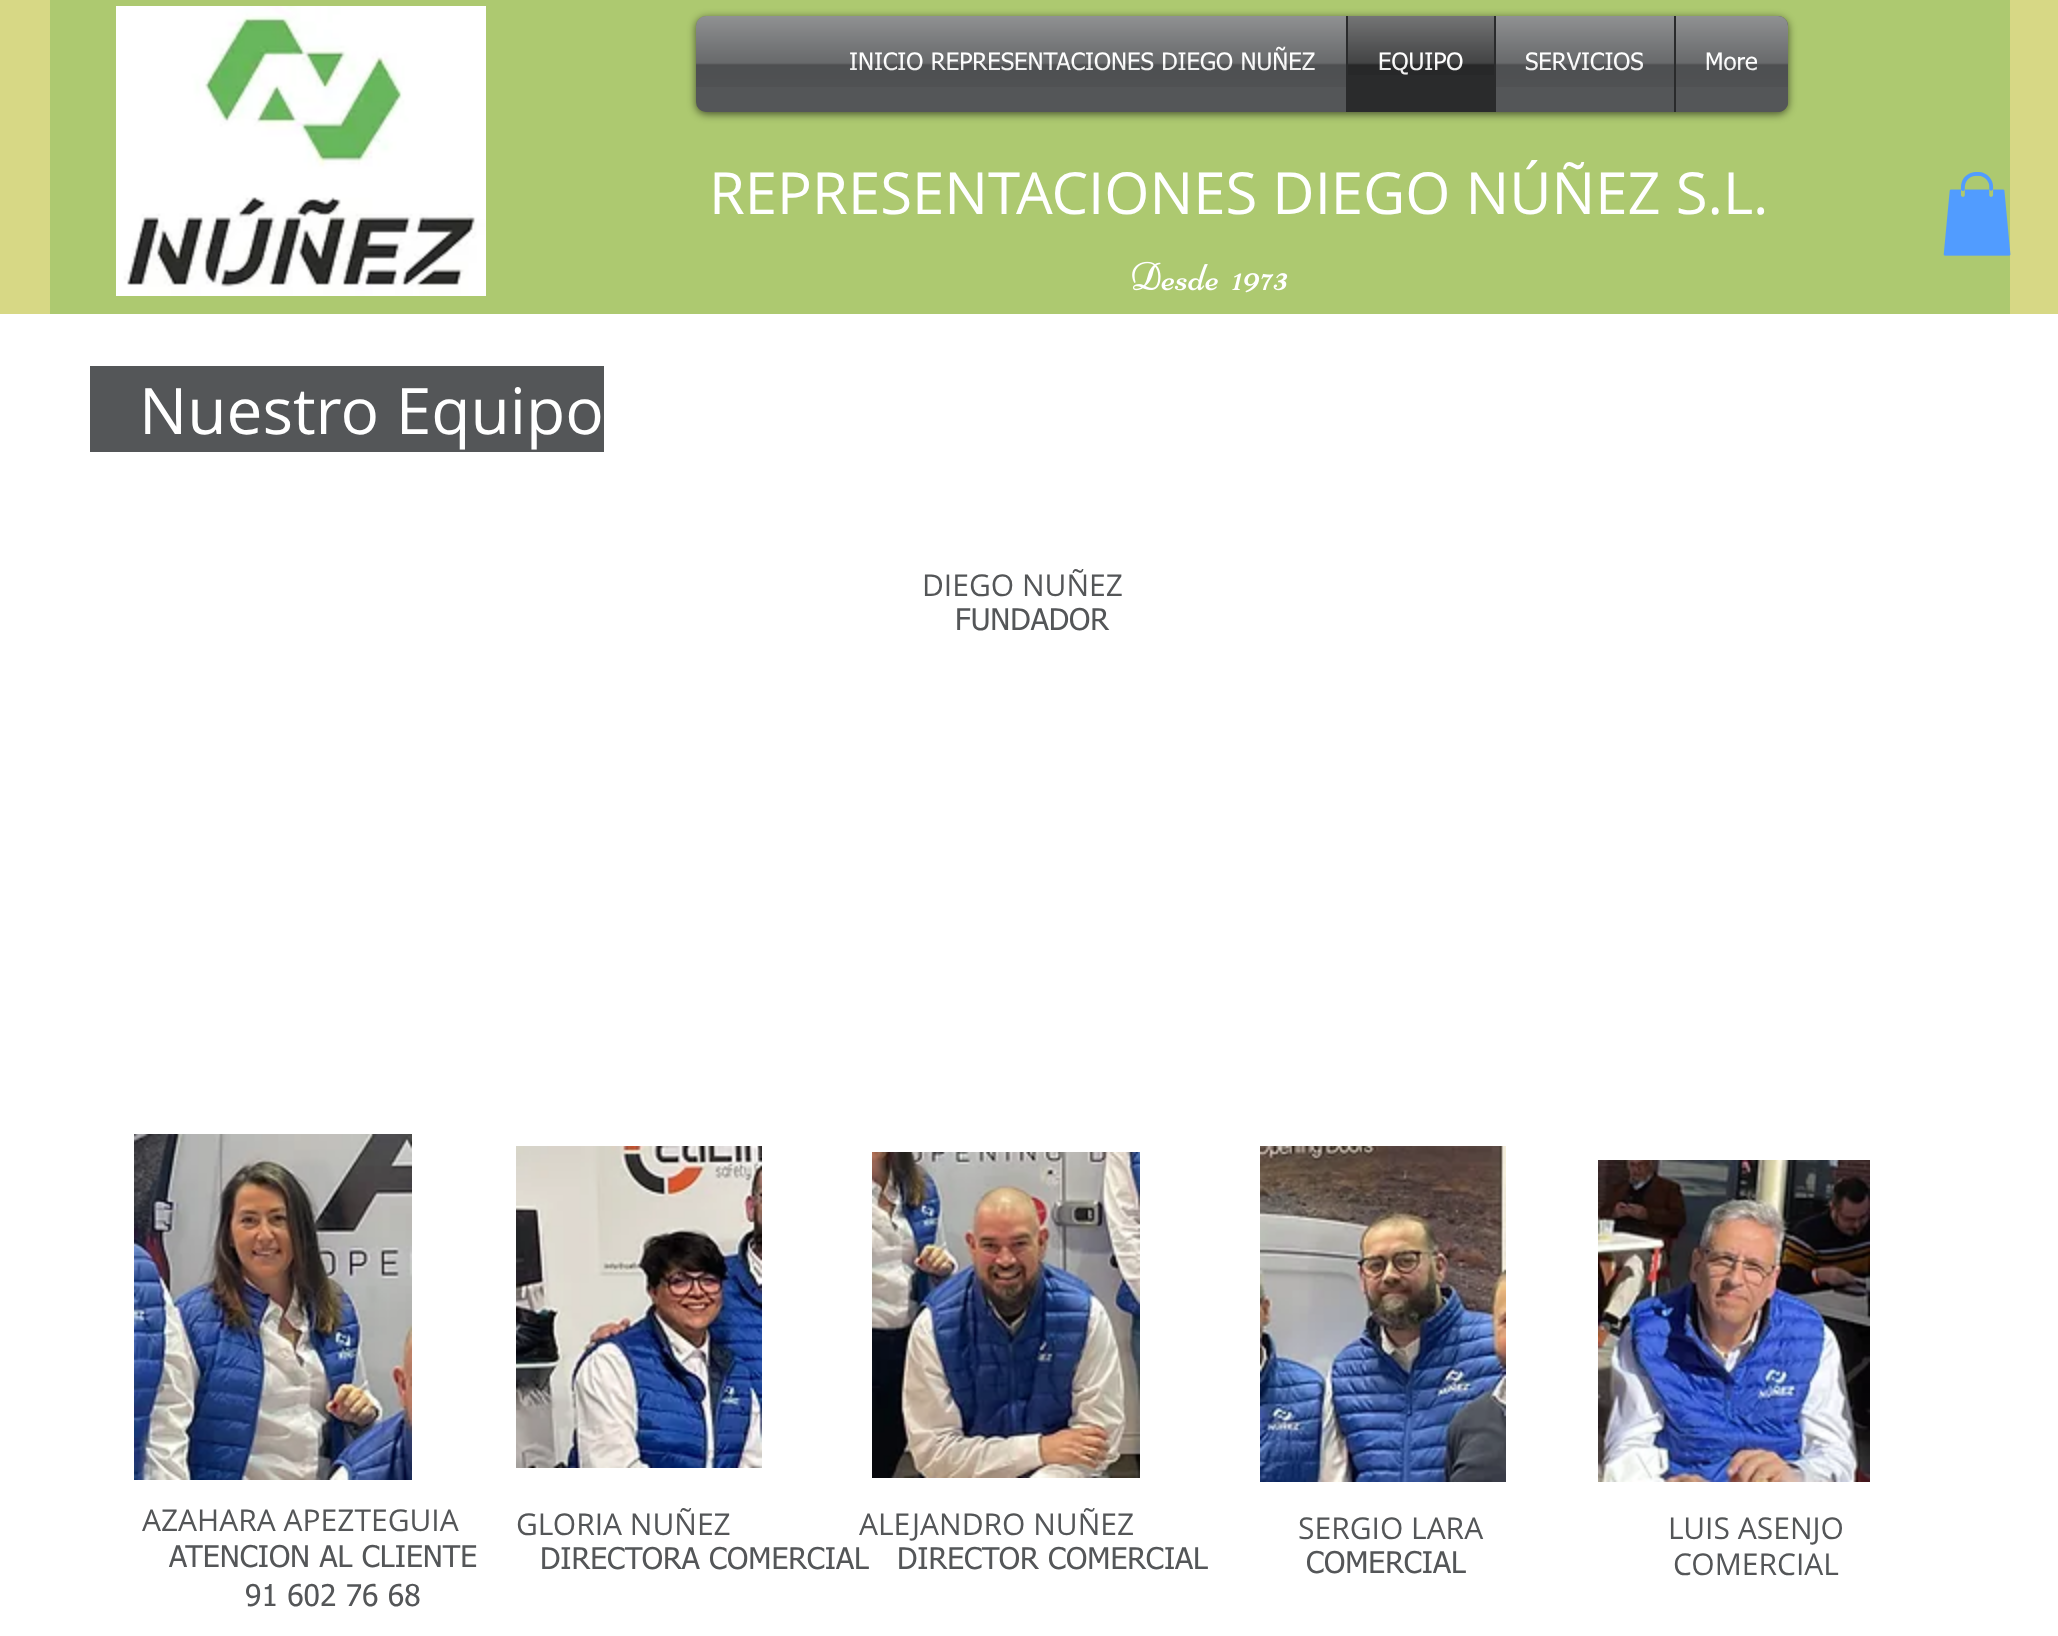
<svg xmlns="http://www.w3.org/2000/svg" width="2058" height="1636">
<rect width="100%" height="100%" fill="#fff"/>
<rect width="2058" height="314" fill="#d7d885"/>
<rect x="50" width="1960" height="314" fill="#adc970"/>
<image x="116" y="6" width="370" height="290" href="media/1.png"/>
<rect x="696" y="18" width="1092" height="96" rx="10" fill="#00000099" filter="blur(4px)"/>
<rect x="696" y="16" width="1092" height="96" rx="10" fill="#545658"/>
<image x="696" y="16" width="1092" height="71" href="media/2.png"/>
<rect x="820" y="16" width="526" height="71" fill="#545658"/>
<text x="849" y="70" style="font-family:tahoma;font-size:24px;fill:#fff">INICIO REPRESENTACIONES DIEGO NUÑEZ</text>
<image x="820" y="16" width="526" height="71" href="media/3.png"/>
<rect x="1346" y="16" width="150" height="96" fill="#2a2b2c"/>
<text x="1378" y="70" style="font-family:tahoma;font-size:24px;fill:#fff">EQUIPO</text>
<image x="1348" y="16" width="146" height="59" href="media/4.png"/>
<rect x="1496" y="16" width="178" height="71" fill="#545658"/>
<text x="1525" y="70" style="font-family:tahoma;font-size:24px;fill:#fff">SERVICIOS</text>
<image x="1496" y="16" width="178" height="71" href="media/5.png"/>
<path d="M1674 16h104c5.5 0 10 4.5 10 10v76c0 5.5-4.5 10-10 10h-104z" fill="#545658"/>
<rect x="1674" y="16" width="2" height="96" fill="#2a2b2c"/>
<text x="1705" y="70" style="font-family:tahoma;font-size:24px;fill:#fff">More</text>
<image x="1676" y="16" width="112" height="71" href="media/6.png"/>
<text x="709" y="214" style="font-family:Open Sans;font-size:58px;fill:#fff">REPRESENTACIONES DIEGO NÚÑEZ S.L.</text>
<image x="1132" y="261" width="156" height="32" href="media/7.png"/>
<image x="1943" y="172" width="68" height="84" href="media/8.png"/>
<rect x="90" y="366" width="514" height="86" fill="#545658"/>
<text x="139" y="434" style="font-family:Open Sans;font-size:64px;fill:#fff">Nuestro Equipo</text>
<text x="922" y="596" style="font-family:Open Sans;font-size:30px;fill:#545658">DIEGO NUÑEZ</text>
<text x="955" y="630" style="font-family:tahoma;font-size:30px;fill:#545658">FUNDADOR</text>
<image x="134" y="1134" width="278" height="346" href="media/9.png"/>
<image x="516" y="1146" width="246" height="322" href="media/10.png"/>
<image x="872" y="1152" width="268" height="326" href="media/11.png"/>
<image x="1260" y="1146" width="246" height="336" href="media/12.png"/>
<image x="1598" y="1160" width="272" height="322" href="media/13.png"/>
<text x="142" y="1531" style="font-family:Open Sans;font-size:30px;fill:#545658">AZAHARA APEZTEGUIA</text>
<text x="169" y="1567" style="font-family:tahoma;font-size:30px;fill:#545658">ATENCION AL CLIENTE</text>
<text x="245" y="1606" style="font-family:tahoma;font-size:30px;fill:#545658">91 602 76 68</text>
<text x="516" y="1535" style="font-family:Open Sans;font-size:30px;fill:#545658">GLORIA NUÑEZ</text>
<text x="540" y="1569" style="font-family:tahoma;font-size:30px;fill:#545658">DIRECTORA COMERCIAL</text>
<text x="859" y="1535" style="font-family:Open Sans;font-size:30px;fill:#545658">ALEJANDRO NUÑEZ</text>
<text x="897" y="1569" style="font-family:tahoma;font-size:30px;fill:#545658">DIRECTOR COMERCIAL</text>
<text x="1298" y="1539" style="font-family:Open Sans;font-size:30px;fill:#545658">SERGIO LARA</text>
<text x="1306" y="1573" style="font-family:tahoma;font-size:30px;fill:#545658">COMERCIAL</text>
<text x="1668" y="1539" style="font-family:Open Sans;font-size:30px;fill:#545658">LUIS ASENJO</text>
<text x="1673" y="1575" style="font-family:Open Sans;font-size:30px;fill:#545658">COMERCIAL</text>
</svg>
